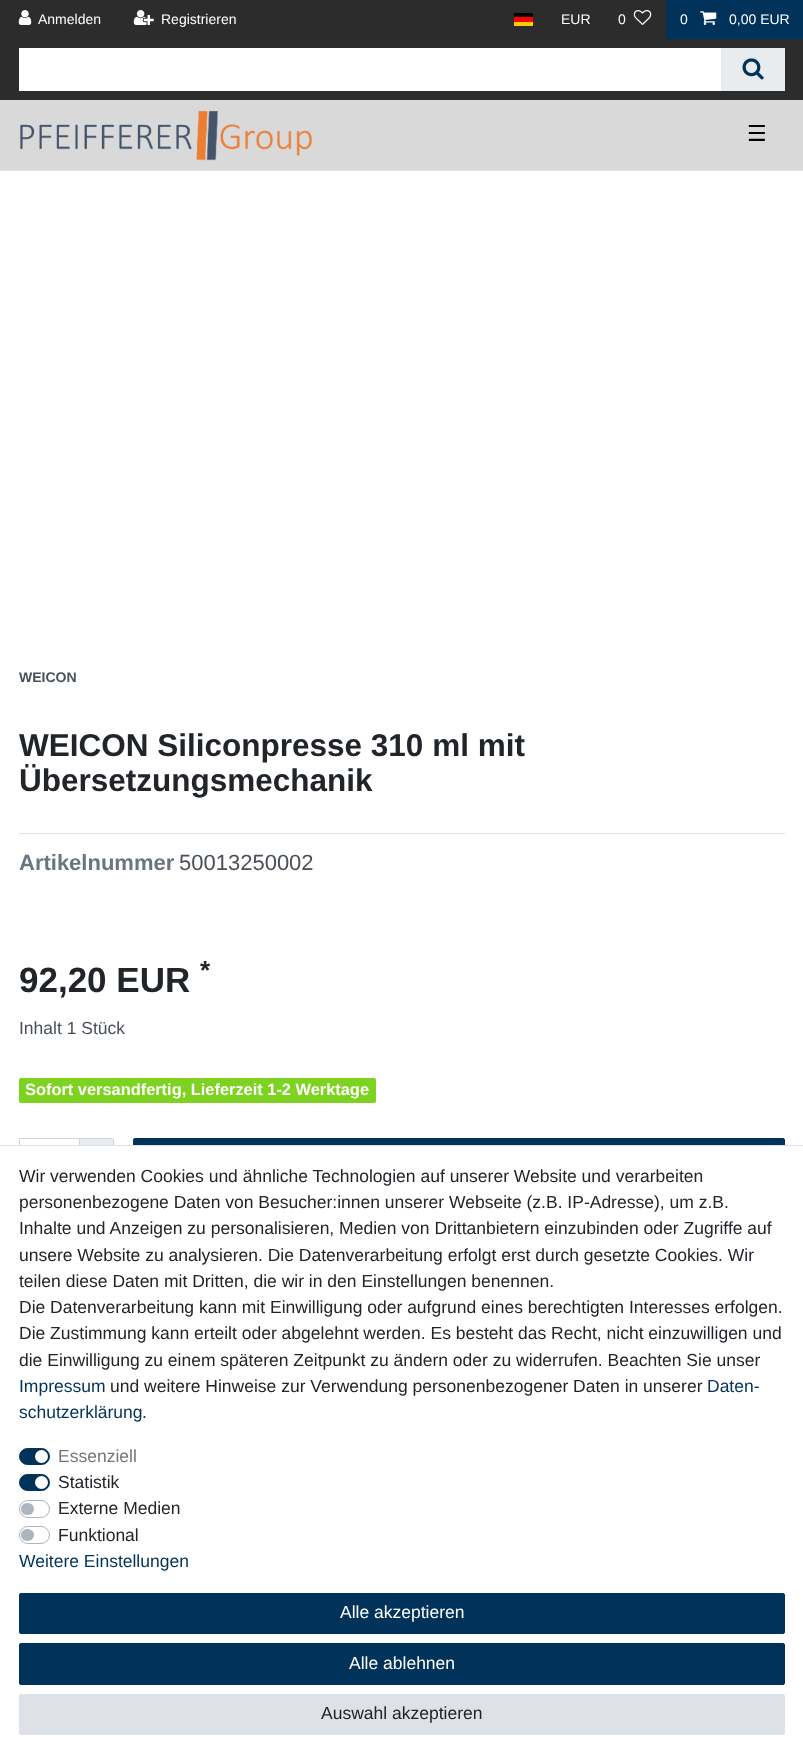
<svg xmlns="http://www.w3.org/2000/svg" width="803" height="1761">
<rect width="100%" height="100%" fill="#fff"/>
<rect width="803" height="100" fill="#2c2c2c"/>
<image x="18" y="10" width="14" height="15" href="media/1.png"/>
<text x="38" y="24" style="font-family:Liberation Sans;font-size:14px;fill:#fff">Anmelden</text>
<image x="133" y="10" width="21" height="15" href="media/2.png"/>
<text x="161" y="24" style="font-family:Liberation Sans;font-size:14px;fill:#fff">Registrieren</text>
<rect x="514" y="22" width="19" height="4" fill="#fc0"/>
<rect x="514" y="13" width="19" height="4" fill="#000"/>
<rect x="514" y="17" width="19" height="5" fill="#f00"/>
<text x="561" y="24" style="font-family:Liberation Sans;font-size:14px;fill:#fff">EUR</text>
<text x="618" y="24" style="font-family:Liberation Sans;font-size:14px;fill:#fff">0</text>
<image x="633" y="10" width="19" height="15" href="media/3.png"/>
<rect x="666" width="137" height="39" fill="#01325a"/>
<text x="680" y="24" style="font-family:Liberation Sans;font-size:14px;fill:#fff">0</text>
<image x="700" y="11" width="17" height="14" href="media/4.png"/>
<text x="729" y="24" style="font-family:Liberation Sans;font-size:14px;fill:#fff">0,00 EUR</text>
<rect x="19" y="48" width="702" height="43" fill="#fff"/>
<rect x="721" y="48" width="64" height="43" fill="#e9ecef"/>
<image x="742" y="58" width="22" height="22" href="media/5.png"/>
<rect y="100" width="803" height="70" fill="#d9d9d9"/>
<rect y="170" width="803" height="1" fill="#dee2e6"/>
<image x="20" y="111" width="292" height="50" href="media/6.png"/>
<text x="747" y="141" style="font-family:DejaVu Sans;font-size:22px;fill:#000">☰</text>
<text x="19" y="682" style="font-family:Liberation Sans;font-size:14px;font-weight:bold;fill:#495057">WEICON</text>
<text x="19" y="756" style="font-family:Liberation Sans;font-size:31.5px;font-weight:bold;fill:#212529">WEICON Siliconpresse 310 ml mit</text>
<text x="19" y="791" style="font-family:Liberation Sans;font-size:31.5px;font-weight:bold;fill:#212529">Übersetzungsmechanik</text>
<rect x="19" y="833" width="766" height="1" fill="#dee2e6"/>
<text x="19" y="870" style="font-family:Liberation Sans;font-size:22px;font-weight:bold;fill:#6c757d">Artikelnummer</text>
<text x="179" y="870" style="font-family:Liberation Sans;font-size:22px;fill:#495057">50013250002</text>
<text x="200" y="979" style="font-family:Liberation Sans;font-size:26px;font-weight:bold;fill:#212529">*</text>
<text x="19" y="992" style="font-family:Liberation Sans;font-size:35px;font-weight:bold;fill:#212529">92,20 EUR</text>
<text x="19" y="1034" style="font-family:Liberation Sans;font-size:17.5px;fill:#495057">Inhalt 1 Stück</text>
<rect x="19" y="1078" width="357" height="25" rx="2" fill="#7ed321"/>
<text x="25" y="1095" style="font-family:Liberation Sans;font-size:16.4px;font-weight:bold;fill:#fff">Sofort versandfertig, Lieferzeit 1-2 Werktage</text>
<rect x="19" y="1138" width="60" height="1" fill="#ced4da"/>
<rect x="19" y="1138" width="1" height="7" fill="#ced4da"/>
<path d="M79.5 1138.5h32.5c1 0 1.5 .5 1.5 1.5v32.5h-34z" fill="#e9ecef" stroke="#ced4da"/>
<rect x="133.5" y="1138.5" width="651" height="69" rx="1.5" fill="#01325a" stroke="#01325a"/>
<rect x="79" y="1146" width="706" height="62" fill="#fff"/>
<rect y="1145" width="803" height="1" fill="#dee2e6"/>
<text x="19" y="1182" style="font-family:Liberation Sans;font-size:17.5px;fill:#212529">Wir verwenden Cookies und ähnliche Technologien auf unserer Website und verarbeiten</text>
<text x="19" y="1208" style="font-family:Liberation Sans;font-size:17.5px;fill:#212529">personenbezogene Daten von Besucher:innen unserer Webseite (z.B. IP-Adresse), um z.B.</text>
<text x="19" y="1234" style="font-family:Liberation Sans;font-size:17.5px;fill:#212529">Inhalte und Anzeigen zu personalisieren, Medien von Drittanbietern einzubinden oder Zugriffe auf</text>
<text x="19" y="1261" style="font-family:Liberation Sans;font-size:17.5px;fill:#212529">unsere Website zu analysieren. Die Datenverarbeitung erfolgt erst durch gesetzte Cookies. Wir</text>
<text x="19" y="1287" style="font-family:Liberation Sans;font-size:17.5px;fill:#212529">teilen diese Daten mit Dritten, die wir in den Einstellungen benennen.</text>
<text x="19" y="1313" style="font-family:Liberation Sans;font-size:17.5px;fill:#212529">Die Datenverarbeitung kann mit Einwilligung oder aufgrund eines berechtigten Interesses erfolgen.</text>
<text x="19" y="1339" style="font-family:Liberation Sans;font-size:17.5px;fill:#212529">Die Zustimmung kann erteilt oder abgelehnt werden. Es besteht das Recht, nicht einzuwilligen und</text>
<text x="19" y="1366" style="font-family:Liberation Sans;font-size:17.5px;fill:#212529">die Einwilligung zu einem späteren Zeitpunkt zu ändern oder zu widerrufen. Beachten Sie unser</text>
<text x="19" y="1392" style="font-family:Liberation Sans;font-size:17.5px;fill:#01325a">Impressum</text>
<text x="110" y="1392" style="font-family:Liberation Sans;font-size:17.5px;fill:#212529">und weitere Hinweise zur Verwendung personenbezogener Daten in unserer</text>
<text x="707" y="1392" style="font-family:Liberation Sans;font-size:17.5px;fill:#01325a">Daten-</text>
<text x="19" y="1418" style="font-family:Liberation Sans;font-size:17.5px;fill:#01325a">schutzerklärung</text>
<text x="142" y="1418" style="font-family:Liberation Sans;font-size:17.5px;fill:#212529">.</text>
<rect x="19.5" y="1448.5" width="30" height="16" rx="8" fill="#01325a" stroke="#01325a"/>
<text x="58" y="1462" style="font-family:Liberation Sans;font-size:17.5px;fill:#767676">Essenziell</text>
<circle cx="41.5" cy="1456.5" r="6.5" fill="#fff"/>
<rect x="19.5" y="1474.5" width="30" height="16" rx="8" fill="#01325a" stroke="#01325a"/>
<text x="58" y="1488" style="font-family:Liberation Sans;font-size:17.5px;fill:#212529">Statistik</text>
<circle cx="41.5" cy="1482.5" r="6.5" fill="#fff"/>
<rect x="19.5" y="1500.5" width="30" height="17" rx="8.5" fill="none" stroke="#adb5bd"/>
<text x="58" y="1514" style="font-family:Liberation Sans;font-size:17.5px;fill:#212529">Externe Medien</text>
<rect x="21" y="1503" width="13" height="12" rx="6" fill="#adb5bd"/>
<rect x="19.5" y="1526.5" width="30" height="17" rx="8.5" fill="none" stroke="#adb5bd"/>
<text x="58" y="1541" style="font-family:Liberation Sans;font-size:17.5px;fill:#212529">Funktional</text>
<rect x="21" y="1529" width="13" height="12" rx="6" fill="#adb5bd"/>
<text x="19" y="1567" style="font-family:Liberation Sans;font-size:17.5px;fill:#01325a">Weitere Einstellungen</text>
<rect x="19.5" y="1593.5" width="765" height="40" rx="1.5" fill="#01325a" stroke="#01325a"/>
<text x="340" y="1618" style="font-family:Liberation Sans;font-size:17.5px;fill:#fff">Alle akzeptieren</text>
<rect x="19.5" y="1643.5" width="765" height="41" rx="1.5" fill="#01325a" stroke="#01325a"/>
<text x="349" y="1669" style="font-family:Liberation Sans;font-size:17.5px;fill:#fff">Alle ablehnen</text>
<rect x="19.5" y="1694.5" width="765" height="40" rx="1.5" fill="#dee2e6" stroke="#dee2e6"/>
<text x="321" y="1719" style="font-family:Liberation Sans;font-size:17.5px;fill:#212529">Auswahl akzeptieren</text>
</svg>
